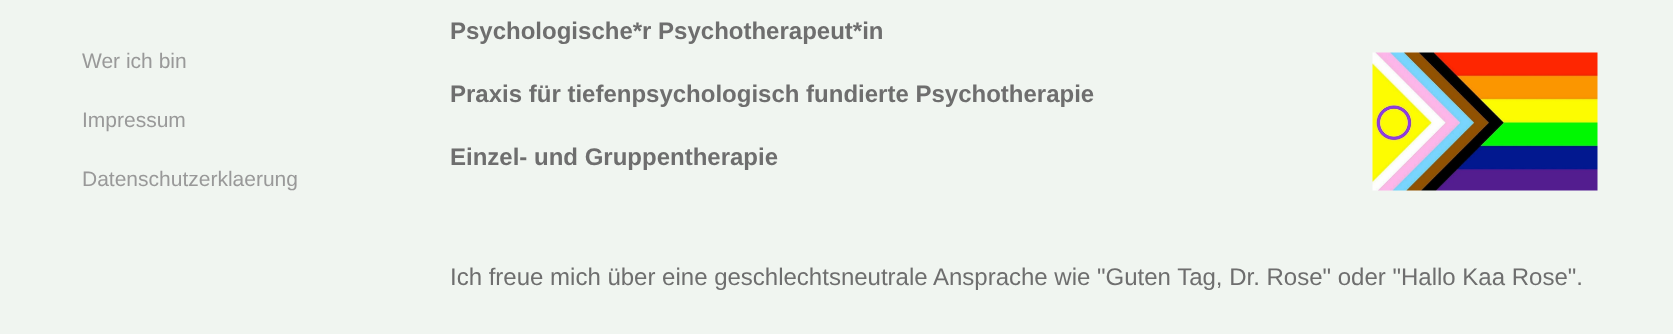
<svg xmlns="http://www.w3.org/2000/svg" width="1673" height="334">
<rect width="100%" height="100%" fill="#f0f5f0"/>
<text x="82" y="68" style="font-family:Liberation Sans;font-size:21px;fill:#999">Wer ich bin</text>
<text x="82" y="127" style="font-family:Liberation Sans;font-size:21px;fill:#999">Impressum</text>
<text x="82" y="186" style="font-family:Liberation Sans;font-size:21px;fill:#999">Datenschutzerklaerung</text>
<text x="450" y="39" style="font-family:Liberation Sans;font-size:24px;font-weight:bold;fill:#6e6e6e">Psychologische*r Psychotherapeut*in</text>
<image x="1372" y="52" width="226" height="139" href="media/1.png"/>
<text x="450" y="102" style="font-family:Liberation Sans;font-size:24px;font-weight:bold;fill:#6e6e6e">Praxis für tiefenpsychologisch fundierte Psychotherapie</text>
<text x="450" y="165" style="font-family:Liberation Sans;font-size:24px;font-weight:bold;fill:#6e6e6e">Einzel- und Gruppentherapie</text>
<text x="450" y="285" style="font-family:Liberation Sans;font-size:24px;fill:#6e6e6e">Ich freue mich über eine geschlechtsneutrale Ansprache wie "Guten Tag, Dr. Rose" oder "Hallo Kaa Rose".</text>
</svg>
